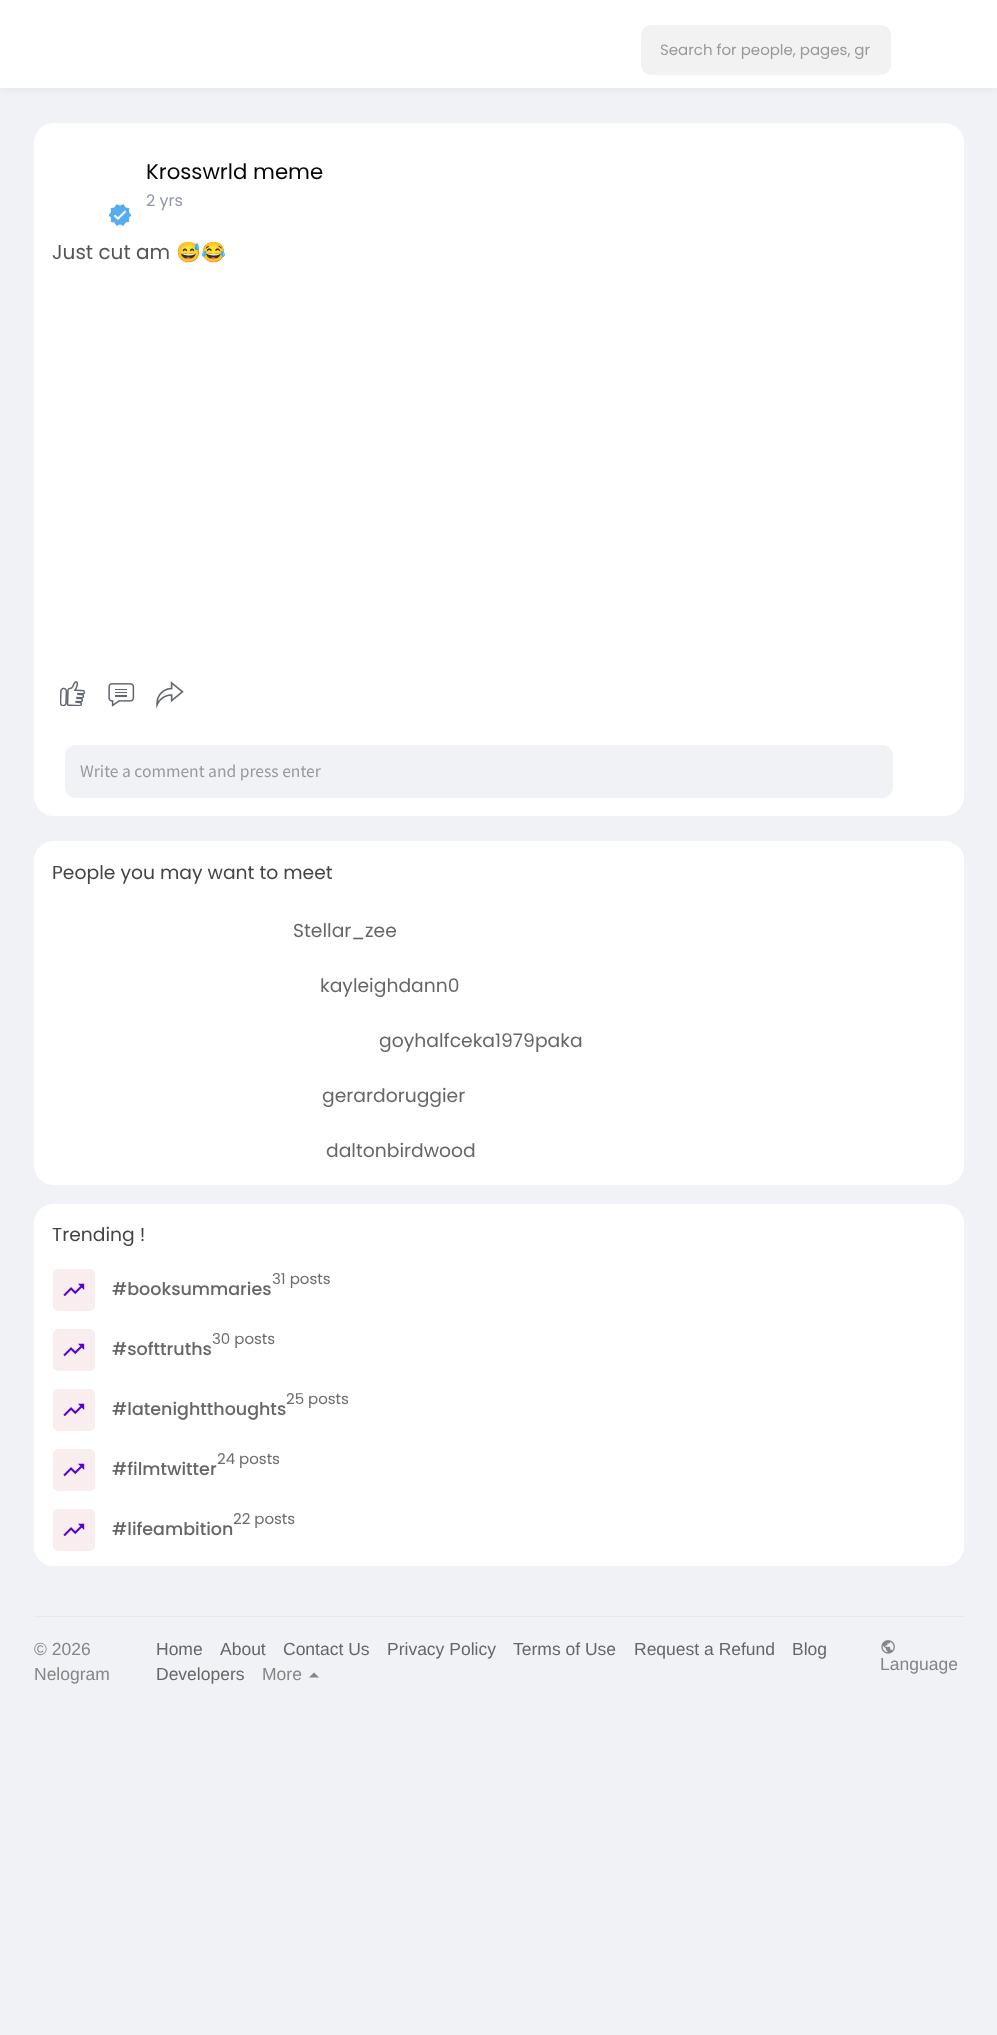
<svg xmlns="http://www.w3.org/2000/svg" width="997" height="2035">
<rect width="100%" height="100%" fill="#f0f2f5"/>
<rect y="1" width="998" height="88" fill="#0000000d" filter="blur(4px)"/>
<rect width="997" height="88" fill="#fff"/>
<rect x="641" y="25" width="250" height="50" rx="10" fill="#f2f2f2"/>
<text x="660" y="55" style="font-family:Poppins;font-size:15px;fill:#999">Search for people, pages, gr</text>
<rect x="34" y="123" width="930" height="693" rx="20" fill="#fff"/>
<text x="146" y="179" style="font-family:Poppins;font-size:21.25px;fill:#050505">Krosswrld meme</text>
<text x="146" y="206" style="font-family:Poppins;font-size:16px;fill:#9197a3">2 yrs</text>
<image x="108" y="204" width="24" height="22" href="media/1.png"/>
<text x="52" y="259" style="font-family:Poppins;font-size:20px;fill:#555">Just cut am</text>
<text x="176" y="259" style="font-family:Noto Color Emoji;font-size:20px;fill:#555">😅😂</text>
<image x="60" y="681" width="25" height="25" href="media/2.png"/>
<image x="108" y="683" width="27" height="24" href="media/3.png"/>
<image x="156" y="681" width="28" height="28" href="media/4.png"/>
<rect x="65" y="745" width="828" height="53" rx="11" fill="#f0f2f5"/>
<text x="80" y="777" style="font-family:Source Sans Pro;font-size:17.5px;fill:#999">Write a comment and press enter</text>
<rect x="34" y="841" width="930" height="344" rx="20" fill="#fff"/>
<path d="M54 841h890c11 0 20 9 20 20v43h-930v-43c0-11 9-20 20-20z" fill="#fff"/>
<text x="52" y="879" style="font-family:Poppins;font-size:18.75px;fill:#444">People you may want to meet</text>
<text x="293" y="937" style="font-family:Poppins;font-size:18.75px;fill:#666">Stellar_zee</text>
<text x="320" y="992" style="font-family:Poppins;font-size:18.75px;fill:#666">kayleighdann0</text>
<text x="379" y="1047" style="font-family:Poppins;font-size:18.75px;fill:#666">goyhalfceka1979paka</text>
<text x="322" y="1102" style="font-family:Poppins;font-size:18.75px;fill:#666">gerardoruggier</text>
<text x="326" y="1157" style="font-family:Poppins;font-size:18.75px;fill:#666">daltonbirdwood</text>
<rect x="34" y="1204" width="930" height="362" rx="20" fill="#fff"/>
<path d="M54 1204h890c11 0 20 9 20 20v42h-930v-42c0-11 9-20 20-20z" fill="#fff"/>
<text x="52" y="1241" style="font-family:Poppins;font-size:18.75px;fill:#444">Trending !</text>
<rect x="53" y="1269" width="42" height="42" rx="5" fill="#f9edee"/>
<text x="112" y="1295" style="font-family:Poppins;font-size:17.5px;font-weight:500;fill:#666">#booksummaries</text>
<image x="63" y="1283" width="22" height="14" href="media/5.png"/>
<text x="272" y="1284" style="font-family:Poppins;font-size:15px;fill:#6c6c6c">31 posts</text>
<rect x="53" y="1329" width="42" height="42" rx="5" fill="#f9edee"/>
<text x="112" y="1355" style="font-family:Poppins;font-size:17.5px;font-weight:500;fill:#666">#softtruths</text>
<image x="63" y="1343" width="22" height="14" href="media/5.png"/>
<text x="212" y="1344" style="font-family:Poppins;font-size:15px;fill:#6c6c6c">30 posts</text>
<rect x="53" y="1389" width="42" height="42" rx="5" fill="#f9edee"/>
<text x="112" y="1415" style="font-family:Poppins;font-size:17.5px;font-weight:500;fill:#666">#latenightthoughts</text>
<image x="63" y="1403" width="22" height="14" href="media/5.png"/>
<text x="286" y="1404" style="font-family:Poppins;font-size:15px;fill:#6c6c6c">25 posts</text>
<rect x="53" y="1449" width="42" height="42" rx="5" fill="#f9edee"/>
<text x="112" y="1475" style="font-family:Poppins;font-size:17.5px;font-weight:500;fill:#666">#filmtwitter</text>
<image x="63" y="1463" width="22" height="14" href="media/5.png"/>
<text x="217" y="1464" style="font-family:Poppins;font-size:15px;fill:#6c6c6c">24 posts</text>
<path d="M34 1506h930v40c0 11-9 20-20 20h-890c-11 0-20-9-20-20z" fill="#fff"/>
<rect x="53" y="1509" width="42" height="42" rx="5" fill="#f9edee"/>
<text x="112" y="1535" style="font-family:Poppins;font-size:17.5px;font-weight:500;fill:#666">#lifeambition</text>
<image x="63" y="1523" width="22" height="14" href="media/5.png"/>
<text x="233" y="1524" style="font-family:Poppins;font-size:15px;fill:#6c6c6c">22 posts</text>
<rect x="34" y="1616" width="930" height="1" fill="#e9e9e9"/>
<text x="34" y="1655" style="font-family:Liberation Sans;font-size:17.5px;fill:#858585">© 2026</text>
<text x="34" y="1680" style="font-family:Liberation Sans;font-size:17.5px;fill:#858585">Nelogram</text>
<text x="156" y="1655" style="font-family:Liberation Sans;font-size:17.5px;fill:#666">Home</text>
<text x="220" y="1655" style="font-family:Liberation Sans;font-size:17.5px;fill:#666">About</text>
<text x="283" y="1655" style="font-family:Liberation Sans;font-size:17.5px;fill:#666">Contact Us</text>
<text x="387" y="1655" style="font-family:Liberation Sans;font-size:17.5px;fill:#666">Privacy Policy</text>
<text x="513" y="1655" style="font-family:Liberation Sans;font-size:17.5px;fill:#666">Terms of Use</text>
<text x="634" y="1655" style="font-family:Liberation Sans;font-size:17.5px;fill:#666">Request a Refund</text>
<text x="792" y="1655" style="font-family:Liberation Sans;font-size:17.5px;fill:#666">Blog</text>
<text x="156" y="1680" style="font-family:Liberation Sans;font-size:17.5px;fill:#666">Developers</text>
<text x="262" y="1680" style="font-family:Liberation Sans;font-size:17.5px;fill:#858585">More</text>
<path d="M319 1677.5h-10l5-5z" fill="#858585"/>
<image x="881" y="1640" width="14" height="14" href="media/6.png"/>
<text x="880" y="1670" style="font-family:Liberation Sans;font-size:17.5px;fill:#858585">Language</text>
</svg>
